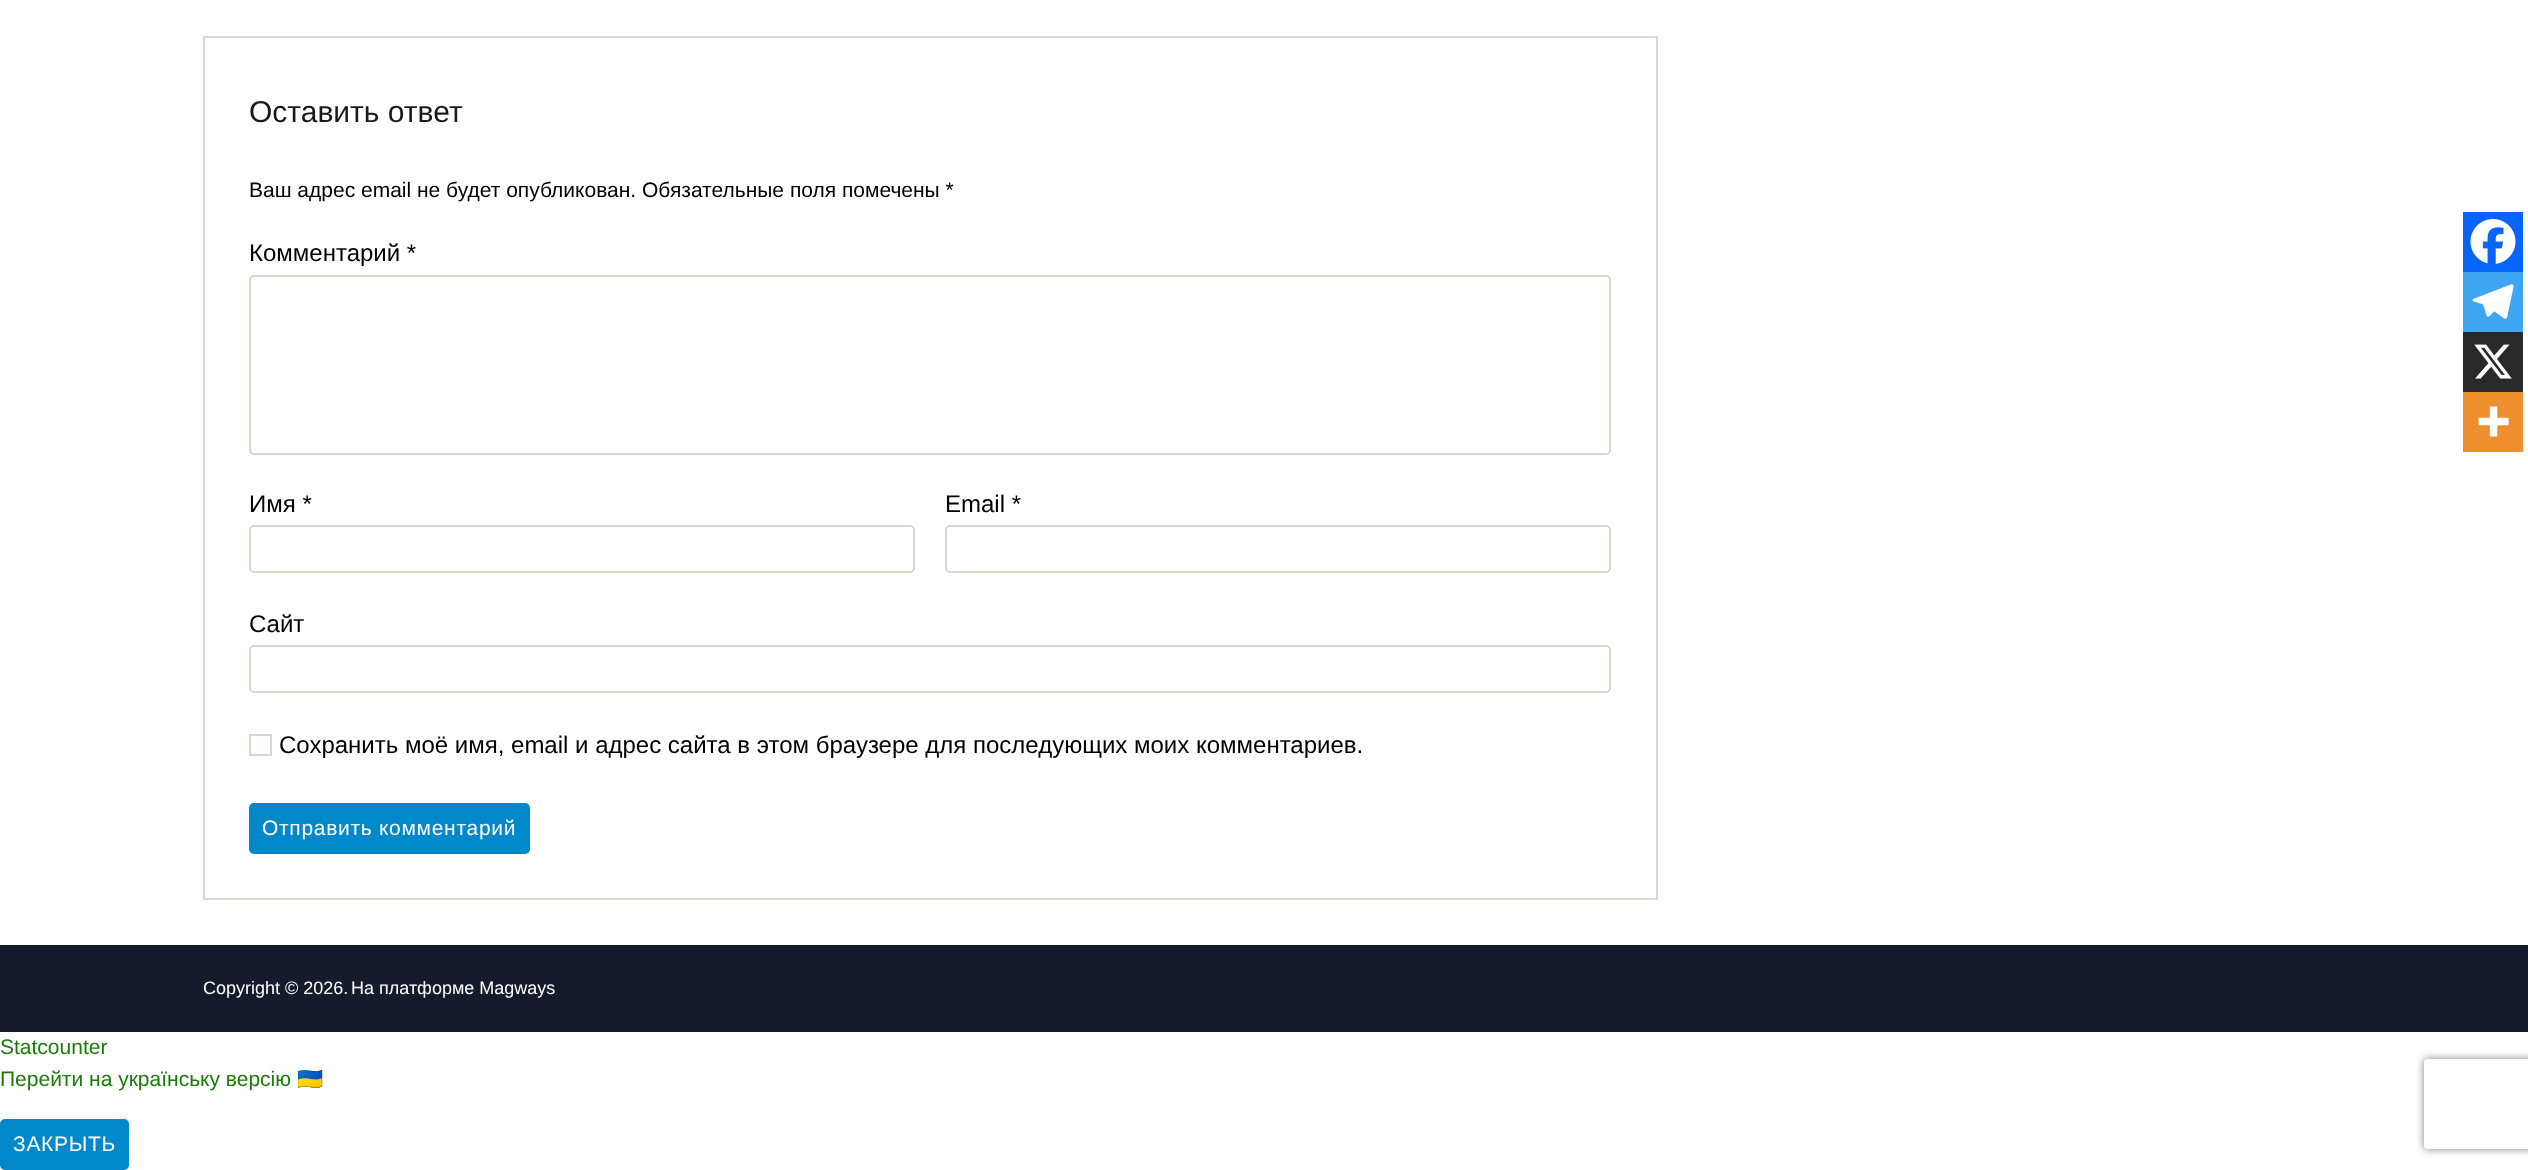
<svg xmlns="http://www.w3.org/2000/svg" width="2528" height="1170">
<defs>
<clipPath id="clip1"><path d="M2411 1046h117v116h-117zm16 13h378c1.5 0 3 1.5 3 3v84c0 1.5-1.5 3-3 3h-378c-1.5 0-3-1.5-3-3v-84c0-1.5 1.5-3 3-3z" clip-rule="evenodd"/></clipPath>
</defs>
<rect width="100%" height="100%" fill="#fff"/>
<rect x="204" y="37" width="1453" height="862" fill="none" stroke="#dcd7ca" stroke-width="2"/>
<text x="249" y="122" style="font-family:Liberation Sans;font-size:30px;fill:#191a1f">Оставить ответ</text>
<text x="249" y="197" style="font-family:Liberation Sans;font-size:21px;fill:#000">Ваш адрес email не будет опубликован. Обязательные поля помечены *</text>
<text x="249" y="261" style="font-family:Liberation Sans;font-size:24px;fill:#000">Комментарий *</text>
<rect x="250" y="276" width="1360" height="178" rx="4" fill="none" stroke="#dcd7ca" stroke-width="2"/>
<text x="249" y="512" style="font-family:Liberation Sans;font-size:24px;fill:#000">Имя *</text>
<rect x="250" y="526" width="664" height="46" rx="4" fill="none" stroke="#dcd7ca" stroke-width="2"/>
<text x="945" y="512" style="font-family:Liberation Sans;font-size:24px;fill:#000">Email *</text>
<rect x="946" y="526" width="664" height="46" rx="4" fill="none" stroke="#dcd7ca" stroke-width="2"/>
<text x="249" y="632" style="font-family:Liberation Sans;font-size:24px;fill:#000">Сайт</text>
<rect x="250" y="646" width="1360" height="46" rx="4" fill="none" stroke="#dcd7ca" stroke-width="2"/>
<rect x="250" y="735" width="21" height="20" fill="none" stroke="#dcd7ca" stroke-width="2"/>
<text x="279" y="753" style="font-family:Liberation Sans;font-size:24px;fill:#000">Сохранить моё имя, email и адрес сайта в этом браузере для последующих моих комментариев.</text>
<rect x="249" y="803" width="281" height="51" rx="5" fill="#0088cb"/>
<text x="262" y="835" style="font-family:Liberation Sans;font-size:21px;letter-spacing:0.7px;fill:#fff">Отправить комментарий</text>
<rect x="2463" y="212" width="60" height="60" fill="#0765fe"/>
<image x="2470" y="219" width="46" height="45" href="media/1.png"/>
<rect x="2463" y="272" width="60" height="60" fill="#3da5f1"/>
<image x="2472" y="284" width="42" height="35" href="media/2.png"/>
<rect x="2463" y="332" width="60" height="60" fill="#2a2a2a"/>
<image x="2474" y="344" width="38" height="35" href="media/3.png"/>
<rect x="2463" y="392" width="60" height="60" fill="#ee8e2d"/>
<image x="2478" y="406" width="31" height="31" href="media/4.png"/>
<rect y="945" width="2528" height="87" fill="#161b2b"/>
<text x="203" y="994" style="font-family:Liberation Sans;font-size:18px;fill:#fff">Copyright © 2026.</text>
<text x="351" y="994" style="font-family:Liberation Sans;font-size:18px;fill:#fff">На платформе Magways</text>
<text x="0" y="1054" style="font-family:Liberation Sans;font-size:21px;fill:#197c07">Statcounter</text>
<g clip-path="url(#clip1)">
<rect x="2424" y="1059" width="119" height="90" rx="3" fill="#808080" filter="blur(4px)"/>
</g>
<text x="0" y="1086" style="font-family:Liberation Sans;font-size:21px;fill:#197c07">Перейти на українську версію</text>
<text x="297" y="1086" style="font-family:Noto Color Emoji;font-size:21px;fill:#197c07">🇺🇦</text>
<rect y="1119" width="129" height="51" rx="5" fill="#0088cb"/>
<text x="13" y="1151" style="font-family:Liberation Sans;font-size:21px;letter-spacing:0.7px;fill:#fff">ЗАКРЫТЬ</text>
</svg>
